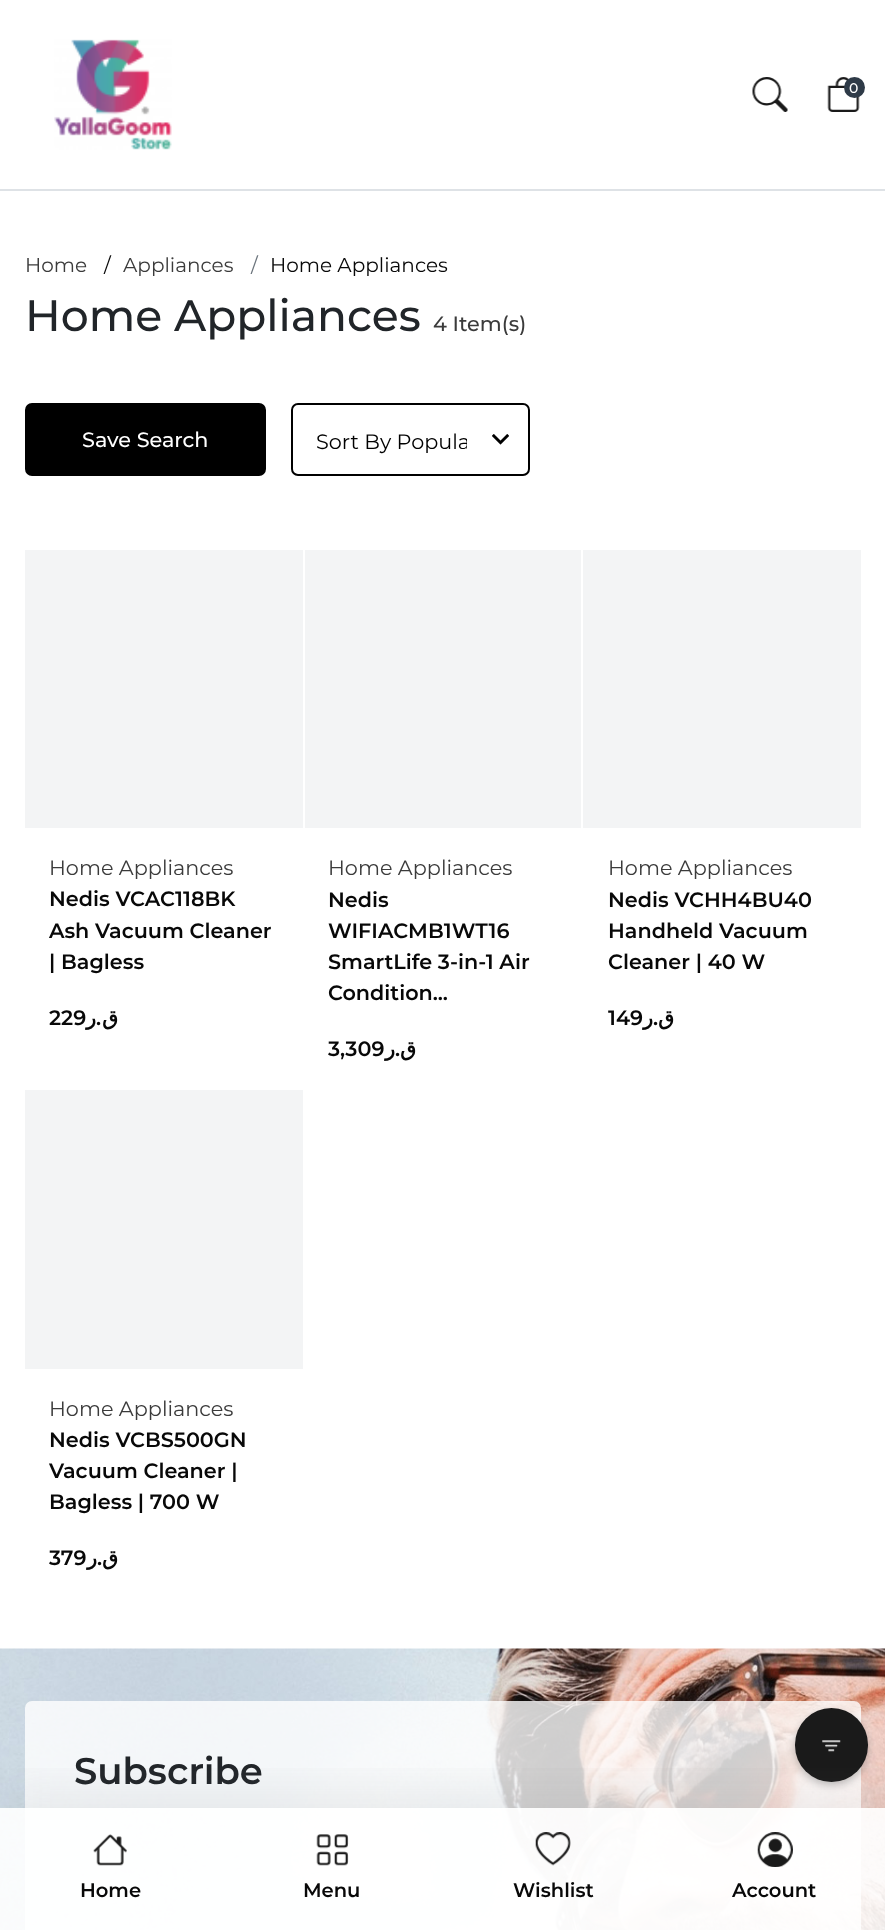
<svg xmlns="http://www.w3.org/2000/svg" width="885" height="1930">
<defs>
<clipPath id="clip1"><rect x="317" y="404" width="150" height="74"/></clipPath>
<clipPath id="clip2"><rect x="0" y="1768" width="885" height="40"/></clipPath>
</defs>
<rect width="100%" height="100%" fill="#fff"/>
<rect y="189" width="885" height="2" fill="#dee2e6"/>
<image x="54" y="39" width="118" height="111" href="media/1.png"/>
<image x="752" y="77" width="36" height="35" href="media/2.png"/>
<image x="827" y="77" width="33" height="35" href="media/3.png"/>
<circle cx="854.5" cy="87.5" r="10.5" fill="#2e3a47"/>
<text x="849" y="93" style="font-family:Montserrat;font-size:14px;font-weight:500;fill:#fff">0</text>
<text x="25" y="272" style="font-family:Montserrat;font-size:20px;fill:#3b3b3b">Home</text>
<text x="104" y="272" style="font-family:Montserrat;font-size:20px;fill:#080808">/</text>
<text x="123" y="272" style="font-family:Montserrat;font-size:20px;fill:#3b3b3b">Appliances</text>
<text x="251" y="272" style="font-family:Montserrat;font-size:20px;fill:#6c757d">/</text>
<text x="270" y="272" style="font-family:Montserrat;font-size:20px;fill:#080808">Home Appliances</text>
<text x="25" y="331" style="font-family:Montserrat;font-size:44px;font-weight:500;fill:#212529">Home Appliances</text>
<text x="433" y="331" style="font-family:Montserrat;font-size:20.75px;font-weight:500;fill:#3b3b3b">4 Item(s)</text>
<rect x="26" y="404" width="239" height="71" rx="6" fill="#000" stroke="#000" stroke-width="2"/>
<text x="82" y="447" style="font-family:Montserrat;font-size:20.75px;font-weight:500;fill:#fff">Save Search</text>
<image x="492" y="434" width="17" height="11" href="media/4.png"/>
<rect x="292" y="404" width="237" height="71" rx="6" fill="none" stroke="#000" stroke-width="2"/>
<g clip-path="url(#clip1)">
<text x="316" y="449" style="font-family:Montserrat;font-size:20.75px;fill:#000">Sort By Popula</text>
</g>
<rect x="25" y="550" width="278" height="278" fill="#f3f4f5"/>
<text x="49" y="875" style="font-family:Montserrat;font-size:20.75px;fill:#3b3b3b">Home Appliances</text>
<text x="49" y="906" style="font-family:Montserrat;font-size:20.75px;font-weight:600;fill:#080808">Nedis VCAC118BK</text>
<text x="49" y="938" style="font-family:Montserrat;font-size:20.75px;font-weight:600;fill:#080808">Ash Vacuum Cleaner</text>
<text x="49" y="969" style="font-family:Montserrat;font-size:20.75px;font-weight:600;fill:#080808">| Bagless</text>
<text x="49" y="1025" style="font-family:Montserrat;font-size:20.75px;font-weight:600;fill:#080808">229</text>
<text x="96" y="1025" style="font-family:DejaVu Sans;font-size:20.75px;font-weight:bold;direction:rtl;fill:#080808">ر</text>
<text x="101" y="1025" style="font-family:Montserrat;font-size:20.75px;font-weight:600;direction:rtl;fill:#080808">.</text>
<text x="118" y="1025" style="font-family:DejaVu Sans;font-size:20.75px;font-weight:bold;direction:rtl;fill:#080808">ق</text>
<rect x="305" y="550" width="276" height="278" fill="#f3f4f5"/>
<text x="328" y="875" style="font-family:Montserrat;font-size:20.75px;fill:#3b3b3b">Home Appliances</text>
<text x="328" y="907" style="font-family:Montserrat;font-size:20.75px;font-weight:600;fill:#080808">Nedis</text>
<text x="328" y="938" style="font-family:Montserrat;font-size:20.75px;font-weight:600;fill:#080808">WIFIACMB1WT16</text>
<text x="328" y="969" style="font-family:Montserrat;font-size:20.75px;font-weight:600;fill:#080808">SmartLife 3-in-1 Air</text>
<text x="328" y="1000" style="font-family:Montserrat;font-size:20.75px;font-weight:600;fill:#080808">Condition...</text>
<text x="328" y="1056" style="font-family:Montserrat;font-size:20.75px;font-weight:600;fill:#080808">3,309</text>
<text x="395" y="1056" style="font-family:DejaVu Sans;font-size:20.75px;font-weight:bold;direction:rtl;fill:#080808">ر</text>
<text x="400" y="1056" style="font-family:Montserrat;font-size:20.75px;font-weight:600;direction:rtl;fill:#080808">.</text>
<text x="416" y="1056" style="font-family:DejaVu Sans;font-size:20.75px;font-weight:bold;direction:rtl;fill:#080808">ق</text>
<rect x="583" y="550" width="278" height="278" fill="#f3f4f5"/>
<text x="608" y="875" style="font-family:Montserrat;font-size:20.75px;fill:#3b3b3b">Home Appliances</text>
<text x="608" y="907" style="font-family:Montserrat;font-size:20.75px;font-weight:600;fill:#080808">Nedis VCHH4BU40</text>
<text x="608" y="938" style="font-family:Montserrat;font-size:20.75px;font-weight:600;fill:#080808">Handheld Vacuum</text>
<text x="608" y="969" style="font-family:Montserrat;font-size:20.75px;font-weight:600;fill:#080808">Cleaner | 40 W</text>
<text x="608" y="1025" style="font-family:Montserrat;font-size:20.75px;font-weight:600;fill:#080808">149</text>
<text x="653" y="1025" style="font-family:DejaVu Sans;font-size:20.75px;font-weight:bold;direction:rtl;fill:#080808">ر</text>
<text x="658" y="1025" style="font-family:Montserrat;font-size:20.75px;font-weight:600;direction:rtl;fill:#080808">.</text>
<text x="674" y="1025" style="font-family:DejaVu Sans;font-size:20.75px;font-weight:bold;direction:rtl;fill:#080808">ق</text>
<rect x="25" y="1090" width="278" height="279" fill="#f3f4f5"/>
<text x="49" y="1416" style="font-family:Montserrat;font-size:20.75px;fill:#3b3b3b">Home Appliances</text>
<text x="49" y="1447" style="font-family:Montserrat;font-size:20.75px;font-weight:600;fill:#080808">Nedis VCBS500GN</text>
<text x="49" y="1478" style="font-family:Montserrat;font-size:20.75px;font-weight:600;fill:#080808">Vacuum Cleaner |</text>
<text x="49" y="1509" style="font-family:Montserrat;font-size:20.75px;font-weight:600;fill:#080808">Bagless | 700 W</text>
<text x="49" y="1565" style="font-family:Montserrat;font-size:20.75px;font-weight:600;fill:#080808">379</text>
<text x="97" y="1565" style="font-family:DejaVu Sans;font-size:20.75px;font-weight:bold;direction:rtl;fill:#080808">ر</text>
<text x="102" y="1565" style="font-family:Montserrat;font-size:20.75px;font-weight:600;direction:rtl;fill:#080808">.</text>
<text x="118" y="1565" style="font-family:DejaVu Sans;font-size:20.75px;font-weight:bold;direction:rtl;fill:#080808">ق</text>
<image x="0" y="1648" width="885" height="282" href="media/6.png"/>
<rect x="25" y="1701" width="836" height="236" rx="7" fill="#ffffffcc"/>
<rect x="795" y="1712" width="73" height="73" rx="36.5" fill="#00000042" filter="blur(4.5px)"/>
<rect x="795" y="1708" width="73" height="74" rx="36.5" fill="#1a1a1a"/>
<image x="822" y="1740" width="19" height="12" href="media/5.png"/>
<text x="74" y="1784" style="font-family:Montserrat;font-size:37px;font-weight:600;fill:#212529">Subscribe</text>
<g clip-path="url(#clip2)">
<rect y="1790" width="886" height="123" fill="#6f6f6f1a" filter="blur(26px)"/>
</g>
<rect y="1808" width="885" height="122" fill="#ffffffe6"/>
<image x="93" y="1834" width="34" height="32" href="media/7.png"/>
<text x="80" y="1897" style="font-family:Montserrat;font-size:19.5px;font-weight:600;fill:#080808">Home</text>
<image x="316" y="1834" width="33" height="32" href="media/8.png"/>
<text x="303" y="1897" style="font-family:Montserrat;font-size:19.5px;font-weight:600;fill:#080808">Menu</text>
<image x="535" y="1832" width="36" height="34" href="media/9.png"/>
<text x="513" y="1897" style="font-family:Montserrat;font-size:19.5px;font-weight:600;fill:#080808">Wishlist</text>
<image x="757" y="1832" width="36" height="35" href="media/10.png"/>
<text x="732" y="1897" style="font-family:Montserrat;font-size:19.5px;font-weight:600;fill:#080808">Account</text>
</svg>
